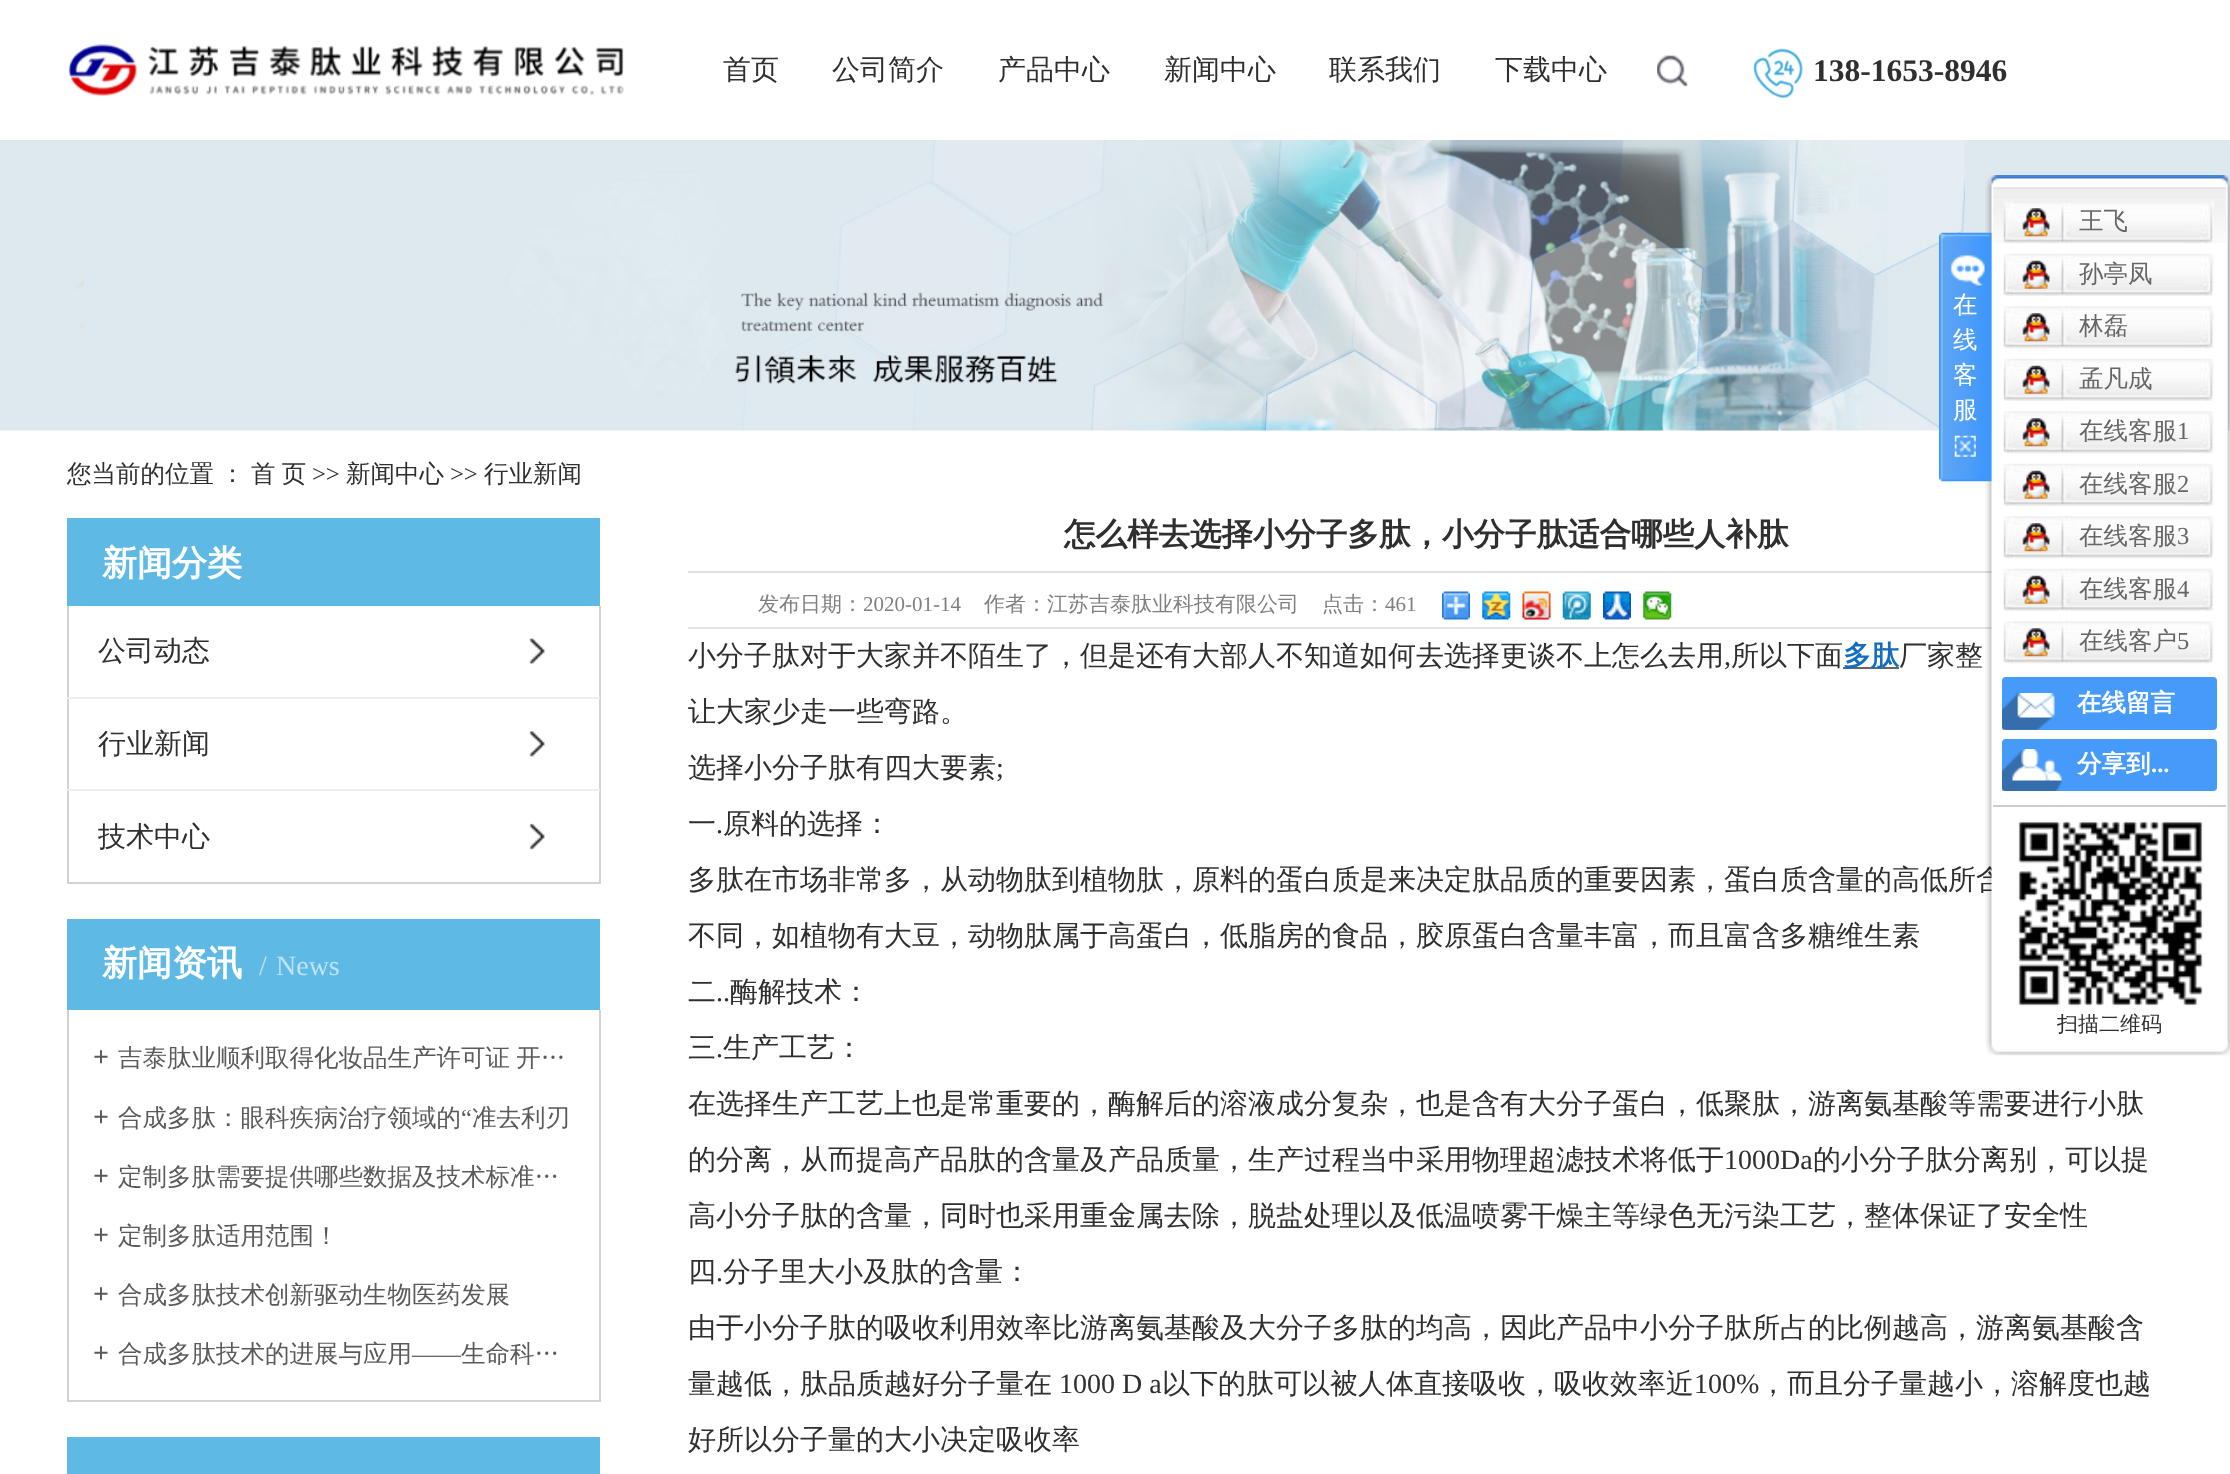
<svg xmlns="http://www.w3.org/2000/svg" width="2230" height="1474">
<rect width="100%" height="100%" fill="#fff"/>
<image x="68" y="44" width="556" height="52" href="media/1.png"/>
<text x="723" y="79" style="font-family:WenQuanYi Zen Hei;font-size:28px;font-weight:500;fill:#2f2f2f">首页</text>
<text x="832" y="79" style="font-family:WenQuanYi Zen Hei;font-size:28px;font-weight:500;fill:#2f2f2f">公司简介</text>
<text x="998" y="79" style="font-family:WenQuanYi Zen Hei;font-size:28px;font-weight:500;fill:#2f2f2f">产品中心</text>
<text x="1164" y="79" style="font-family:WenQuanYi Zen Hei;font-size:28px;font-weight:500;fill:#2f2f2f">新闻中心</text>
<text x="1329" y="79" style="font-family:WenQuanYi Zen Hei;font-size:28px;font-weight:500;fill:#2f2f2f">联系我们</text>
<text x="1495" y="79" style="font-family:WenQuanYi Zen Hei;font-size:28px;font-weight:500;fill:#2f2f2f">下载中心</text>
<image x="1657" y="55" width="31" height="32" href="media/2.png"/>
<image x="1753" y="48" width="51" height="51" href="media/3.png"/>
<text x="1813" y="81" style="font-family:Liberation Serif;font-size:31.5px;font-weight:bold;fill:#2f2f2f">138-1653-8946</text>
<image x="0" y="140" width="2230" height="291" href="media/4.png"/>
<text x="67" y="482" word-spacing="-1" style="font-family:WenQuanYi Zen Hei;font-size:24.5px;font-weight:500;fill:#2f2f2f">您当前的位置 ：</text>
<text x="251" y="482" word-spacing="-1" style="font-family:WenQuanYi Zen Hei;font-size:24.5px;font-weight:500;fill:#2f2f2f">首 页</text>
<text x="312" y="482" style="font-family:Liberation Serif;font-size:24.5px;fill:#2f2f2f">&gt;&gt;</text>
<text x="346" y="482" style="font-family:WenQuanYi Zen Hei;font-size:24.5px;font-weight:500;fill:#2f2f2f">新闻中心</text>
<text x="450" y="482" style="font-family:Liberation Serif;font-size:24.5px;fill:#2f2f2f">&gt;&gt;</text>
<text x="484" y="482" style="font-family:WenQuanYi Zen Hei;font-size:24.5px;font-weight:500;fill:#2f2f2f">行业新闻</text>
<image x="1986" y="175" width="244" height="13" href="media/7.png"/>
<rect x="688" y="571" width="1304" height="2" fill="#e0e1dc"/>
<rect x="688" y="627" width="1304" height="2" fill="#e1e4e6"/>
<text x="688" y="889" style="font-family:WenQuanYi Zen Hei;font-size:28px;font-weight:500;fill:#2f2f2f">多肽在市场非常多，从动物肽到植物肽，原料的蛋白质是来决定肽品质的重要因素，蛋白质含量的高低所含</text>
<image x="1985" y="187" width="245" height="855" href="media/8.png"/>
<image x="1939" y="232" width="53" height="250" href="media/5.png"/>
<text x="1953" y="313" style="font-family:WenQuanYi Zen Hei;font-size:24.5px;font-weight:500;fill:#fff">在</text>
<text x="1953" y="348" style="font-family:WenQuanYi Zen Hei;font-size:24.5px;font-weight:500;fill:#fff">线</text>
<text x="1953" y="383" style="font-family:WenQuanYi Zen Hei;font-size:24.5px;font-weight:500;fill:#fff">客</text>
<text x="1953" y="418" style="font-family:WenQuanYi Zen Hei;font-size:24.5px;font-weight:500;fill:#fff">服</text>
<image x="1954" y="435" width="22" height="22" href="media/6.png"/>
<rect x="1993" y="187" width="233" height="1" fill="#fff"/>
<image x="1993" y="187" width="233" height="56" href="media/9.png"/>
<image x="2003" y="201" width="211" height="43" href="media/10.png"/>
<image x="2022" y="208" width="28" height="29" href="media/11.png"/>
<text x="2079" y="229" style="font-family:WenQuanYi Zen Hei;font-size:24.5px;font-weight:500;fill:#666">王飞</text>
<image x="2003" y="253" width="211" height="43" href="media/12.png"/>
<image x="2022" y="260" width="28" height="29" href="media/13.png"/>
<text x="2079" y="282" style="font-family:WenQuanYi Zen Hei;font-size:24.5px;font-weight:500;fill:#666">孙亭凤</text>
<image x="2003" y="306" width="211" height="43" href="media/14.png"/>
<image x="2022" y="313" width="28" height="29" href="media/15.png"/>
<text x="2079" y="334" style="font-family:WenQuanYi Zen Hei;font-size:24.5px;font-weight:500;fill:#666">林磊</text>
<image x="2003" y="358" width="211" height="43" href="media/12.png"/>
<image x="2022" y="365" width="28" height="29" href="media/13.png"/>
<text x="2079" y="387" style="font-family:WenQuanYi Zen Hei;font-size:24.5px;font-weight:500;fill:#666">孟凡成</text>
<image x="2003" y="411" width="211" height="43" href="media/14.png"/>
<image x="2022" y="418" width="28" height="29" href="media/15.png"/>
<text x="2079" y="439" style="font-family:WenQuanYi Zen Hei;font-size:24.5px;font-weight:500;fill:#666">在线客服</text>
<text x="2177" y="439" style="font-family:Liberation Serif;font-size:24.5px;fill:#666">1</text>
<image x="2003" y="463" width="211" height="43" href="media/12.png"/>
<image x="2022" y="470" width="28" height="29" href="media/13.png"/>
<text x="2079" y="492" style="font-family:WenQuanYi Zen Hei;font-size:24.5px;font-weight:500;fill:#666">在线客服</text>
<text x="2177" y="492" style="font-family:Liberation Serif;font-size:24.5px;fill:#666">2</text>
<image x="2003" y="516" width="211" height="43" href="media/14.png"/>
<image x="2022" y="523" width="28" height="29" href="media/15.png"/>
<text x="2079" y="544" style="font-family:WenQuanYi Zen Hei;font-size:24.5px;font-weight:500;fill:#666">在线客服</text>
<text x="2177" y="544" style="font-family:Liberation Serif;font-size:24.5px;fill:#666">3</text>
<image x="2003" y="568" width="211" height="43" href="media/12.png"/>
<image x="2022" y="575" width="28" height="29" href="media/13.png"/>
<text x="2079" y="597" style="font-family:WenQuanYi Zen Hei;font-size:24.5px;font-weight:500;fill:#666">在线客服</text>
<text x="2177" y="597" style="font-family:Liberation Serif;font-size:24.5px;fill:#666">4</text>
<image x="2003" y="621" width="211" height="43" href="media/14.png"/>
<image x="2022" y="628" width="28" height="29" href="media/15.png"/>
<text x="2079" y="649" style="font-family:WenQuanYi Zen Hei;font-size:24.5px;font-weight:500;fill:#666">在线客户</text>
<text x="2177" y="649" style="font-family:Liberation Serif;font-size:24.5px;fill:#666">5</text>
<rect x="2002" y="677" width="215" height="53" rx="4" fill="#459afa"/>
<image x="2002" y="693" width="53" height="37" href="media/16.png"/>
<text x="2077" y="711" style="font-family:WenQuanYi Zen Hei;font-size:24.5px;font-weight:bold;fill:#fff">在线留言</text>
<rect x="2002" y="739" width="215" height="52" rx="4" fill="#459afa"/>
<image x="2002" y="749" width="60" height="42" href="media/17.png"/>
<text x="2077" y="772" style="font-family:WenQuanYi Zen Hei;font-size:24.5px;font-weight:bold;fill:#fff">分享到</text>
<text x="2151" y="772" style="font-family:Liberation Serif;font-size:24.5px;font-weight:bold;fill:#fff">...</text>
<rect x="1993" y="805" width="233" height="2" fill="#ccc"/>
<image x="2017" y="820" width="187" height="187" href="media/18.png"/>
<text x="2057" y="1031" style="font-family:WenQuanYi Zen Hei;font-size:21px;font-weight:500;fill:#2f2f2f">扫描二维码</text>
<image x="1986" y="1041" width="244" height="15" href="media/19.png"/>
<rect x="67" y="518" width="533" height="88" fill="#5eb9e4"/>
<text x="102" y="575" style="font-family:WenQuanYi Zen Hei;font-size:35px;font-weight:bold;fill:#fff">新闻分类</text>
<rect x="599" y="606" width="2" height="278" fill="#d2d2d2"/>
<rect x="67" y="882" width="533" height="2" fill="#d2d2d2"/>
<rect x="67" y="606" width="2" height="278" fill="#d2d2d2"/>
<rect x="67" y="697" width="533" height="2" fill="#eee"/>
<text x="98" y="660" style="font-family:WenQuanYi Zen Hei;font-size:28px;font-weight:500;fill:#2f2f2f">公司动态</text>
<image x="529" y="638" width="16" height="26" href="media/20.png"/>
<rect x="67" y="789" width="533" height="2" fill="#eee"/>
<text x="98" y="753" style="font-family:WenQuanYi Zen Hei;font-size:28px;font-weight:500;fill:#2f2f2f">行业新闻</text>
<image x="529" y="731" width="16" height="26" href="media/21.png"/>
<text x="98" y="846" style="font-family:WenQuanYi Zen Hei;font-size:28px;font-weight:500;fill:#2f2f2f">技术中心</text>
<image x="529" y="823" width="16" height="27" href="media/22.png"/>
<rect x="67" y="919" width="533" height="91" fill="#5eb9e4"/>
<text x="102" y="975" style="font-family:WenQuanYi Zen Hei;font-size:35px;font-weight:bold;fill:#fff">新闻资讯</text>
<text x="259" y="975" style="font-family:Liberation Serif;font-size:28px;fill:#bfe3f4">/</text>
<text x="276" y="975" style="font-family:Liberation Serif;font-size:28px;fill:#bfe3f4">News</text>
<rect x="599" y="1010" width="2" height="392" fill="#d2d2d2"/>
<rect x="67" y="1400" width="533" height="2" fill="#d2d2d2"/>
<rect x="67" y="1010" width="2" height="392" fill="#d2d2d2"/>
<text x="93" y="1066" style="font-family:Liberation Serif;font-size:28px;font-weight:bold;fill:#5a5a5a">+</text>
<text x="118" y="1066" word-spacing="-1" style="font-family:WenQuanYi Zen Hei;font-size:24.5px;font-weight:500;fill:#5a5a5a">吉泰肽业顺利取得化妆品生产许可证 开…</text>
<text x="93" y="1126" style="font-family:Liberation Serif;font-size:28px;font-weight:bold;fill:#5a5a5a">+</text>
<text x="118" y="1126" style="font-family:WenQuanYi Zen Hei;font-size:24.5px;font-weight:500;fill:#5a5a5a">合成多肽：眼科疾病治疗领域的</text>
<text x="461" y="1126" style="font-family:Liberation Serif;font-size:24.5px;fill:#5a5a5a">“</text>
<text x="472" y="1126" style="font-family:WenQuanYi Zen Hei;font-size:24.5px;font-weight:500;fill:#5a5a5a">准去利刃</text>
<text x="93" y="1185" style="font-family:Liberation Serif;font-size:28px;font-weight:bold;fill:#5a5a5a">+</text>
<text x="118" y="1185" style="font-family:WenQuanYi Zen Hei;font-size:24.5px;font-weight:500;fill:#5a5a5a">定制多肽需要提供哪些数据及技术标准…</text>
<text x="93" y="1244" style="font-family:Liberation Serif;font-size:28px;font-weight:bold;fill:#5a5a5a">+</text>
<text x="118" y="1244" style="font-family:WenQuanYi Zen Hei;font-size:24.5px;font-weight:500;fill:#5a5a5a">定制多肽适用范围！</text>
<text x="93" y="1303" style="font-family:Liberation Serif;font-size:28px;font-weight:bold;fill:#5a5a5a">+</text>
<text x="118" y="1303" style="font-family:WenQuanYi Zen Hei;font-size:24.5px;font-weight:500;fill:#5a5a5a">合成多肽技术创新驱动生物医药发展</text>
<text x="93" y="1362" style="font-family:Liberation Serif;font-size:28px;font-weight:bold;fill:#5a5a5a">+</text>
<text x="118" y="1362" style="font-family:WenQuanYi Zen Hei;font-size:24.5px;font-weight:500;fill:#5a5a5a">合成多肽技术的进展与应用</text>
<text x="412" y="1362" style="font-family:Liberation Serif;font-size:24.5px;fill:#5a5a5a">——</text>
<text x="461" y="1362" style="font-family:WenQuanYi Zen Hei;font-size:24.5px;font-weight:500;fill:#5a5a5a">生命科…</text>
<rect x="67" y="1437" width="533" height="37" fill="#5eb9e4"/>
<text x="1064" y="545" style="font-family:WenQuanYi Zen Hei;font-size:31.5px;font-weight:bold;fill:#2f2f2f">怎么样去选择小分子多肽，小分子肽适合哪些人补肽</text>
<text x="758" y="611" style="font-family:WenQuanYi Zen Hei;font-size:21px;font-weight:500;fill:#808080">发布日期：</text>
<text x="863" y="611" style="font-family:Liberation Serif;font-size:21px;fill:#808080">2020-01-14</text>
<text x="984" y="611" style="font-family:WenQuanYi Zen Hei;font-size:21px;font-weight:500;fill:#808080">作者：江苏吉泰肽业科技有限公司</text>
<text x="1322" y="611" style="font-family:WenQuanYi Zen Hei;font-size:21px;font-weight:500;fill:#808080">点击：</text>
<text x="1385" y="611" style="font-family:Liberation Serif;font-size:21px;fill:#808080">461</text>
<image x="1442" y="591" width="28" height="29" href="media/23.png"/>
<image x="1482" y="591" width="29" height="29" href="media/24.png"/>
<image x="1522" y="591" width="29" height="29" href="media/25.png"/>
<image x="1562" y="591" width="29" height="29" href="media/26.png"/>
<image x="1603" y="591" width="28" height="29" href="media/27.png"/>
<image x="1643" y="591" width="29" height="29" href="media/28.png"/>
<text x="688" y="665" style="font-family:WenQuanYi Zen Hei;font-size:28px;font-weight:500;fill:#2f2f2f">小分子肽对于大家并不陌生了，但是还有大部人不知道如何去选择更谈不上怎么去用</text>
<text x="1724" y="665" style="font-family:Liberation Serif;font-size:28px;fill:#2f2f2f">,</text>
<text x="1731" y="665" style="font-family:WenQuanYi Zen Hei;font-size:28px;font-weight:500;fill:#2f2f2f">所以下面</text>
<rect x="1843" y="667" width="56" height="2" fill="#666"/>
<text x="1843" y="665" style="font-family:WenQuanYi Zen Hei;font-size:28px;font-weight:bold;fill:#136ec2">多肽</text>
<text x="1899" y="665" style="font-family:WenQuanYi Zen Hei;font-size:28px;font-weight:500;fill:#2f2f2f">厂家整</text>
<text x="688" y="721" style="font-family:WenQuanYi Zen Hei;font-size:28px;font-weight:500;fill:#2f2f2f">让大家少走一些弯路。</text>
<text x="688" y="777" style="font-family:WenQuanYi Zen Hei;font-size:28px;font-weight:500;fill:#2f2f2f">选择小分子肽有四大要素</text>
<text x="996" y="777" style="font-family:Liberation Serif;font-size:28px;fill:#2f2f2f">;</text>
<text x="688" y="833" style="font-family:WenQuanYi Zen Hei;font-size:28px;font-weight:500;fill:#2f2f2f">一</text>
<text x="723" y="833" style="font-family:WenQuanYi Zen Hei;font-size:28px;font-weight:500;fill:#2f2f2f">原料的选择：</text>
<text x="716" y="833" style="font-family:Liberation Serif;font-size:28px;fill:#2f2f2f">.</text>
<text x="688" y="945" style="font-family:WenQuanYi Zen Hei;font-size:28px;font-weight:500;fill:#2f2f2f">不同，如植物有大豆，动物肽属于高蛋白，低脂房的食品，胶原蛋白含量丰富，而且富含多糖维生素</text>
<text x="688" y="1001" style="font-family:WenQuanYi Zen Hei;font-size:28px;font-weight:500;fill:#2f2f2f">二</text>
<text x="716" y="1001" style="font-family:Liberation Serif;font-size:28px;fill:#2f2f2f">..</text>
<text x="730" y="1001" style="font-family:WenQuanYi Zen Hei;font-size:28px;font-weight:500;fill:#2f2f2f">酶解技术：</text>
<text x="688" y="1057" style="font-family:WenQuanYi Zen Hei;font-size:28px;font-weight:500;fill:#2f2f2f">三</text>
<text x="716" y="1057" style="font-family:Liberation Serif;font-size:28px;fill:#2f2f2f">.</text>
<text x="723" y="1057" style="font-family:WenQuanYi Zen Hei;font-size:28px;font-weight:500;fill:#2f2f2f">生产工艺：</text>
<text x="688" y="1113" style="font-family:WenQuanYi Zen Hei;font-size:28px;font-weight:500;fill:#2f2f2f">在选择生产工艺上也是常重要的，酶解后的溶液成分复杂，也是含有大分子蛋白，低聚肽，游离氨基酸等需要进行小肽</text>
<text x="688" y="1169" style="font-family:WenQuanYi Zen Hei;font-size:28px;font-weight:500;fill:#2f2f2f">的分离，从而提高产品肽的含量及产品质量，生产过程当中采用物理超滤技术将低于</text>
<text x="1724" y="1169" style="font-family:Liberation Serif;font-size:28px;fill:#2f2f2f">1000Da</text>
<text x="1813" y="1169" style="font-family:WenQuanYi Zen Hei;font-size:28px;font-weight:500;fill:#2f2f2f">的小分子肽分离别，可以提</text>
<text x="688" y="1225" style="font-family:WenQuanYi Zen Hei;font-size:28px;font-weight:500;fill:#2f2f2f">高小分子肽的含量，同时也采用重金属去除，脱盐处理以及低温喷雾干燥主等绿色无污染工艺，整体保证了安全性</text>
<text x="688" y="1281" style="font-family:WenQuanYi Zen Hei;font-size:28px;font-weight:500;fill:#2f2f2f">四</text>
<text x="716" y="1281" style="font-family:Liberation Serif;font-size:28px;fill:#2f2f2f">.</text>
<text x="723" y="1281" style="font-family:WenQuanYi Zen Hei;font-size:28px;font-weight:500;fill:#2f2f2f">分子里大小及肽的含量：</text>
<text x="688" y="1337" style="font-family:WenQuanYi Zen Hei;font-size:28px;font-weight:500;fill:#2f2f2f">由于小分子肽的吸收利用效率比游离氨基酸及大分子多肽的均高，因此产品中小分子肽所占的比例越高，游离氨基酸含</text>
<text x="688" y="1393" style="font-family:WenQuanYi Zen Hei;font-size:28px;font-weight:500;fill:#2f2f2f">量越低，肽品质越好分子量在</text>
<text x="1059" y="1393" style="font-family:Liberation Serif;font-size:28px;fill:#2f2f2f">1000 D a</text>
<text x="1162" y="1393" style="font-family:WenQuanYi Zen Hei;font-size:28px;font-weight:500;fill:#2f2f2f">以下的肽可以被人体直接吸收，吸收效率近</text>
<text x="1694" y="1393" style="font-family:Liberation Serif;font-size:28px;fill:#2f2f2f">100%</text>
<text x="1759" y="1393" style="font-family:WenQuanYi Zen Hei;font-size:28px;font-weight:500;fill:#2f2f2f">，而且分子量越小，溶解度也越</text>
<text x="688" y="1449" style="font-family:WenQuanYi Zen Hei;font-size:28px;font-weight:500;fill:#2f2f2f">好所以分子量的大小决定吸收率</text>
</svg>
